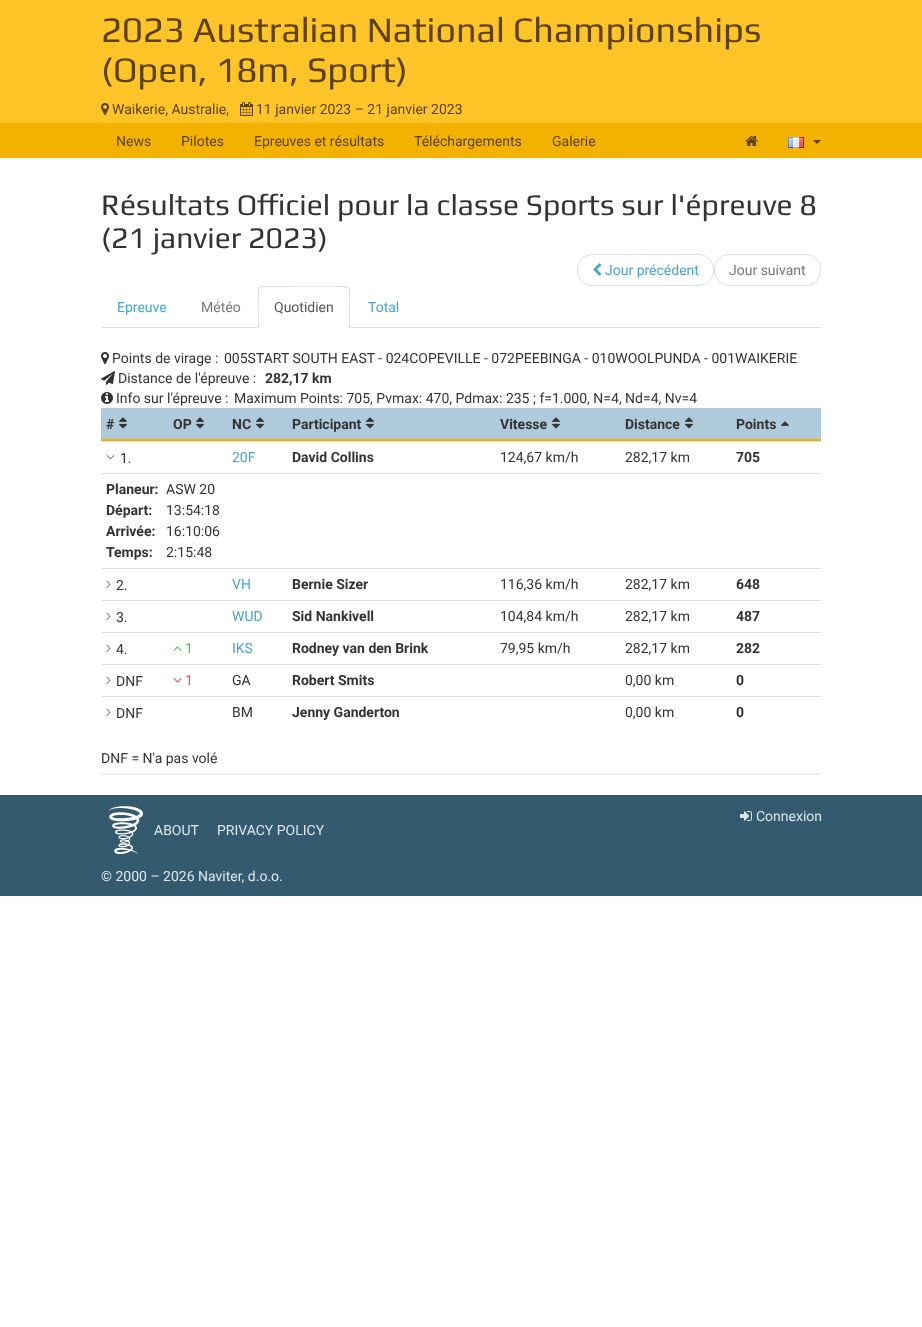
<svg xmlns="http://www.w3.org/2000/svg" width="922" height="1327">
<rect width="100%" height="100%" fill="#fff"/>
<rect width="922" height="123" fill="#ffc528"/>
<text x="101" y="42" style="font-family:Play;font-size:36px;fill:#5b4200">2023 Australian National Championships</text>
<text x="101" y="82" style="font-family:Play;font-size:36px;fill:#5b4200">(Open, 18m, Sport)</text>
<image x="101" y="103" width="8" height="12" href="media/1.png"/>
<text x="112" y="114" style="font-family:Roboto;font-size:14px;fill:#5b4200">Waikerie, Australie,</text>
<image x="240" y="102" width="13" height="14" href="media/2.png"/>
<text x="256" y="114" style="font-family:Roboto;font-size:14px;fill:#5b4200">11 janvier 2023 – 21 janvier 2023</text>
<rect y="123" width="922" height="35" fill="#f4b200"/>
<text x="116" y="146" style="font-family:Roboto;font-size:14px;fill:#5b4200">News</text>
<text x="181" y="146" style="font-family:Roboto;font-size:14px;fill:#5b4200">Pilotes</text>
<text x="254" y="146" style="font-family:Roboto;font-size:14px;fill:#5b4200">Epreuves et résultats</text>
<text x="414" y="146" style="font-family:Roboto;font-size:14px;fill:#5b4200">Téléchargements</text>
<text x="552" y="146" style="font-family:Roboto;font-size:14px;fill:#5b4200">Galerie</text>
<image x="745" y="136" width="13" height="10" href="media/3.png"/>
<image x="788" y="137" width="16" height="11" href="media/4.png"/>
<path d="M813 140h8l-4 4z" fill="#5b4200"/>
<text x="101" y="215" style="font-family:Play;font-size:30px;fill:#333">Résultats Officiel pour la classe Sports sur l'épreuve 8</text>
<text x="101" y="248" style="font-family:Play;font-size:30px;fill:#333">(21 janvier 2023)</text>
<rect x="577.5" y="254.5" width="136" height="31" rx="14.5" fill="none" stroke="#ddd"/>
<image x="593" y="263" width="9" height="13" href="media/5.png"/>
<text x="605" y="275" style="font-family:Roboto;font-size:14px;fill:#47a4d9">Jour précédent</text>
<rect x="714.5" y="254.5" width="106" height="31" rx="14.5" fill="none" stroke="#ddd"/>
<text x="729" y="275" style="font-family:Roboto;font-size:14px;fill:#777">Jour suivant</text>
<rect x="101" y="327" width="720" height="1" fill="#ddd"/>
<text x="117" y="312" style="font-family:Roboto;font-size:14px;fill:#47a4d9">Epreuve</text>
<text x="201" y="312" style="font-family:Roboto;font-size:14px;fill:#777">Météo</text>
<path d="M262 286h84c2 0 4 2 4 4v38h-92v-38c0-2 2-4 4-4z" fill="#fff"/>
<path d="M262 286l-3 1l1 1l2-1h14c8 0 70-1 72 1l1-1l-3-1z" fill="#ddd"/>
<path d="M350 328v-38c0-1 0-2-1-3l-1 1c2 2 1 34 1 39z" fill="#ddd"/>
<path d="M258 328l1-1c0-5-1-37 1-39l-1-1l-1 3z" fill="#ddd"/>
<text x="274" y="312" style="font-family:Roboto;font-size:14px;fill:#555">Quotidien</text>
<text x="368" y="312" style="font-family:Roboto;font-size:14px;fill:#47a4d9">Total</text>
<image x="101" y="352" width="8" height="12" href="media/6.png"/>
<text x="112" y="363" style="font-family:Roboto;font-size:14px;fill:#333">Points de virage :</text>
<text x="224" y="363" style="font-family:Roboto;font-size:14px;fill:#333">005START SOUTH EAST - 024COPEVILLE - 072PEEBINGA - 010WOOLPUNDA - 001WAIKERIE</text>
<image x="101" y="371" width="14" height="14" href="media/7.png"/>
<text x="118" y="383" style="font-family:Roboto;font-size:14px;fill:#333">Distance de l'épreuve :</text>
<text x="265" y="383" style="font-family:Roboto;font-size:14px;font-weight:bold;fill:#333">282,17 km</text>
<image x="101" y="392" width="12" height="12" href="media/8.png"/>
<text x="116" y="403" style="font-family:Roboto;font-size:14px;fill:#333">Info sur l'épreuve :</text>
<text x="234" y="403" style="font-family:Roboto;font-size:14px;fill:#333">Maximum Points: 705, Pvmax: 470, Pdmax: 235 ; f=1.000, N=4, Nd=4, Nv=4</text>
<rect x="101" y="408" width="720" height="31" fill="#afcada"/>
<rect x="101" y="439" width="720" height="2" fill="#f4b200"/>
<text x="106" y="429" style="font-family:Roboto;font-size:14px;font-weight:bold;fill:#333">#</text>
<image x="119" y="417" width="8" height="12" href="media/9.png"/>
<text x="173" y="429" style="font-family:Roboto;font-size:14px;font-weight:bold;fill:#333">OP</text>
<image x="196" y="417" width="8" height="12" href="media/9.png"/>
<text x="232" y="429" style="font-family:Roboto;font-size:14px;font-weight:bold;fill:#333">NC</text>
<image x="256" y="417" width="8" height="12" href="media/9.png"/>
<text x="292" y="429" style="font-family:Roboto;font-size:14px;font-weight:bold;fill:#333">Participant</text>
<image x="366" y="417" width="8" height="12" href="media/9.png"/>
<text x="500" y="429" style="font-family:Roboto;font-size:14px;font-weight:bold;fill:#333">Vitesse</text>
<image x="552" y="417" width="8" height="12" href="media/9.png"/>
<text x="625" y="429" style="font-family:Roboto;font-size:14px;font-weight:bold;fill:#333">Distance</text>
<image x="685" y="417" width="8" height="12" href="media/9.png"/>
<text x="736" y="429" style="font-family:Roboto;font-size:14px;font-weight:bold;fill:#333">Points</text>
<image x="781" y="421" width="8" height="5" href="media/10.png"/>
<rect x="101" y="441" width="720" height="1" fill="#ddd"/>
<image x="106" y="455" width="9" height="5" href="media/11.png"/>
<text x="120" y="463" style="font-family:Roboto;font-size:14px;fill:#333">1.</text>
<text x="232" y="462" style="font-family:Roboto;font-size:14px;fill:#47a4d9">20F</text>
<text x="292" y="462" style="font-family:Roboto;font-size:14px;font-weight:bold;fill:#333">David Collins</text>
<text x="500" y="462" style="font-family:Roboto;font-size:14px;fill:#333">124,67 km/h</text>
<text x="625" y="462" style="font-family:Roboto;font-size:14px;fill:#333">282,17 km</text>
<text x="736" y="462" style="font-family:Roboto;font-size:14px;font-weight:bold;fill:#333">705</text>
<rect x="101" y="473" width="720" height="1" fill="#ddd"/>
<text x="106" y="494" style="font-family:Roboto;font-size:14px;font-weight:bold;fill:#333">Planeur:</text>
<text x="166" y="494" style="font-family:Roboto;font-size:14px;fill:#333">ASW 20</text>
<text x="106" y="515" style="font-family:Roboto;font-size:14px;font-weight:bold;fill:#333">Départ:</text>
<text x="166" y="515" style="font-family:Roboto;font-size:14px;fill:#333">13:54:18</text>
<text x="106" y="536" style="font-family:Roboto;font-size:14px;font-weight:bold;fill:#333">Arrivée:</text>
<text x="166" y="536" style="font-family:Roboto;font-size:14px;fill:#333">16:10:06</text>
<text x="106" y="557" style="font-family:Roboto;font-size:14px;font-weight:bold;fill:#333">Temps:</text>
<text x="166" y="557" style="font-family:Roboto;font-size:14px;fill:#333">2:15:48</text>
<rect x="101" y="568" width="720" height="1" fill="#ddd"/>
<image x="106" y="580" width="5" height="9" href="media/12.png"/>
<text x="116" y="590" style="font-family:Roboto;font-size:14px;fill:#333">2.</text>
<text x="232" y="589" style="font-family:Roboto;font-size:14px;fill:#47a4d9">VH</text>
<text x="292" y="589" style="font-family:Roboto;font-size:14px;font-weight:bold;fill:#333">Bernie Sizer</text>
<text x="500" y="589" style="font-family:Roboto;font-size:14px;fill:#333">116,36 km/h</text>
<text x="625" y="589" style="font-family:Roboto;font-size:14px;fill:#333">282,17 km</text>
<text x="736" y="589" style="font-family:Roboto;font-size:14px;font-weight:bold;fill:#333">648</text>
<rect x="101" y="600" width="720" height="1" fill="#ddd"/>
<image x="106" y="612" width="5" height="9" href="media/12.png"/>
<text x="116" y="622" style="font-family:Roboto;font-size:14px;fill:#333">3.</text>
<text x="232" y="621" style="font-family:Roboto;font-size:14px;fill:#47a4d9">WUD</text>
<text x="292" y="621" style="font-family:Roboto;font-size:14px;font-weight:bold;fill:#333">Sid Nankivell</text>
<text x="500" y="621" style="font-family:Roboto;font-size:14px;fill:#333">104,84 km/h</text>
<text x="625" y="621" style="font-family:Roboto;font-size:14px;fill:#333">282,17 km</text>
<text x="736" y="621" style="font-family:Roboto;font-size:14px;font-weight:bold;fill:#333">487</text>
<rect x="101" y="632" width="720" height="1" fill="#ddd"/>
<image x="106" y="644" width="5" height="9" href="media/12.png"/>
<text x="116" y="654" style="font-family:Roboto;font-size:14px;fill:#333">4.</text>
<image x="173" y="646" width="9" height="5" href="media/13.png"/>
<text x="185" y="653" style="font-family:Roboto;font-size:14px;fill:#5cb85c">1</text>
<text x="232" y="653" style="font-family:Roboto;font-size:14px;fill:#47a4d9">IKS</text>
<text x="292" y="653" style="font-family:Roboto;font-size:14px;font-weight:bold;fill:#333">Rodney van den Brink</text>
<text x="500" y="653" style="font-family:Roboto;font-size:14px;fill:#333">79,95 km/h</text>
<text x="625" y="653" style="font-family:Roboto;font-size:14px;fill:#333">282,17 km</text>
<text x="736" y="653" style="font-family:Roboto;font-size:14px;font-weight:bold;fill:#333">282</text>
<rect x="101" y="664" width="720" height="1" fill="#ddd"/>
<image x="106" y="676" width="5" height="9" href="media/12.png"/>
<text x="116" y="686" style="font-family:Roboto;font-size:14px;fill:#333">DNF</text>
<image x="173" y="678" width="9" height="5" href="media/14.png"/>
<text x="185" y="685" style="font-family:Roboto;font-size:14px;fill:#d9534f">1</text>
<text x="232" y="685" style="font-family:Roboto;font-size:14px;fill:#333">GA</text>
<text x="292" y="685" style="font-family:Roboto;font-size:14px;font-weight:bold;fill:#333">Robert Smits</text>
<text x="625" y="685" style="font-family:Roboto;font-size:14px;fill:#333">0,00 km</text>
<text x="736" y="685" style="font-family:Roboto;font-size:14px;font-weight:bold;fill:#333">0</text>
<rect x="101" y="696" width="720" height="1" fill="#ddd"/>
<image x="106" y="708" width="5" height="9" href="media/12.png"/>
<text x="116" y="718" style="font-family:Roboto;font-size:14px;fill:#333">DNF</text>
<text x="232" y="717" style="font-family:Roboto;font-size:14px;fill:#333">BM</text>
<text x="292" y="717" style="font-family:Roboto;font-size:14px;font-weight:bold;fill:#333">Jenny Ganderton</text>
<text x="625" y="717" style="font-family:Roboto;font-size:14px;fill:#333">0,00 km</text>
<text x="736" y="717" style="font-family:Roboto;font-size:14px;font-weight:bold;fill:#333">0</text>
<text x="101" y="763" style="font-family:Roboto;font-size:14px;fill:#333">DNF = N'a pas volé</text>
<rect x="101" y="773" width="720" height="2" fill="#eee"/>
<rect y="795" width="922" height="101" fill="#345a6f"/>
<image x="740" y="811" width="12" height="10" href="media/15.png"/>
<text x="756" y="821" style="font-family:Roboto;font-size:14px;fill:#dce7ed">Connexion</text>
<image x="109" y="806" width="34" height="48" href="media/16.png"/>
<text x="154" y="835" style="font-family:Roboto;font-size:14px;fill:#dce7ed">ABOUT</text>
<text x="217" y="835" style="font-family:Roboto;font-size:14px;fill:#dce7ed">PRIVACY POLICY</text>
<text x="101" y="881" style="font-family:Roboto;font-size:14px;fill:#dce7ed">© 2000 – 2026 Naviter, d.o.o.</text>
</svg>
